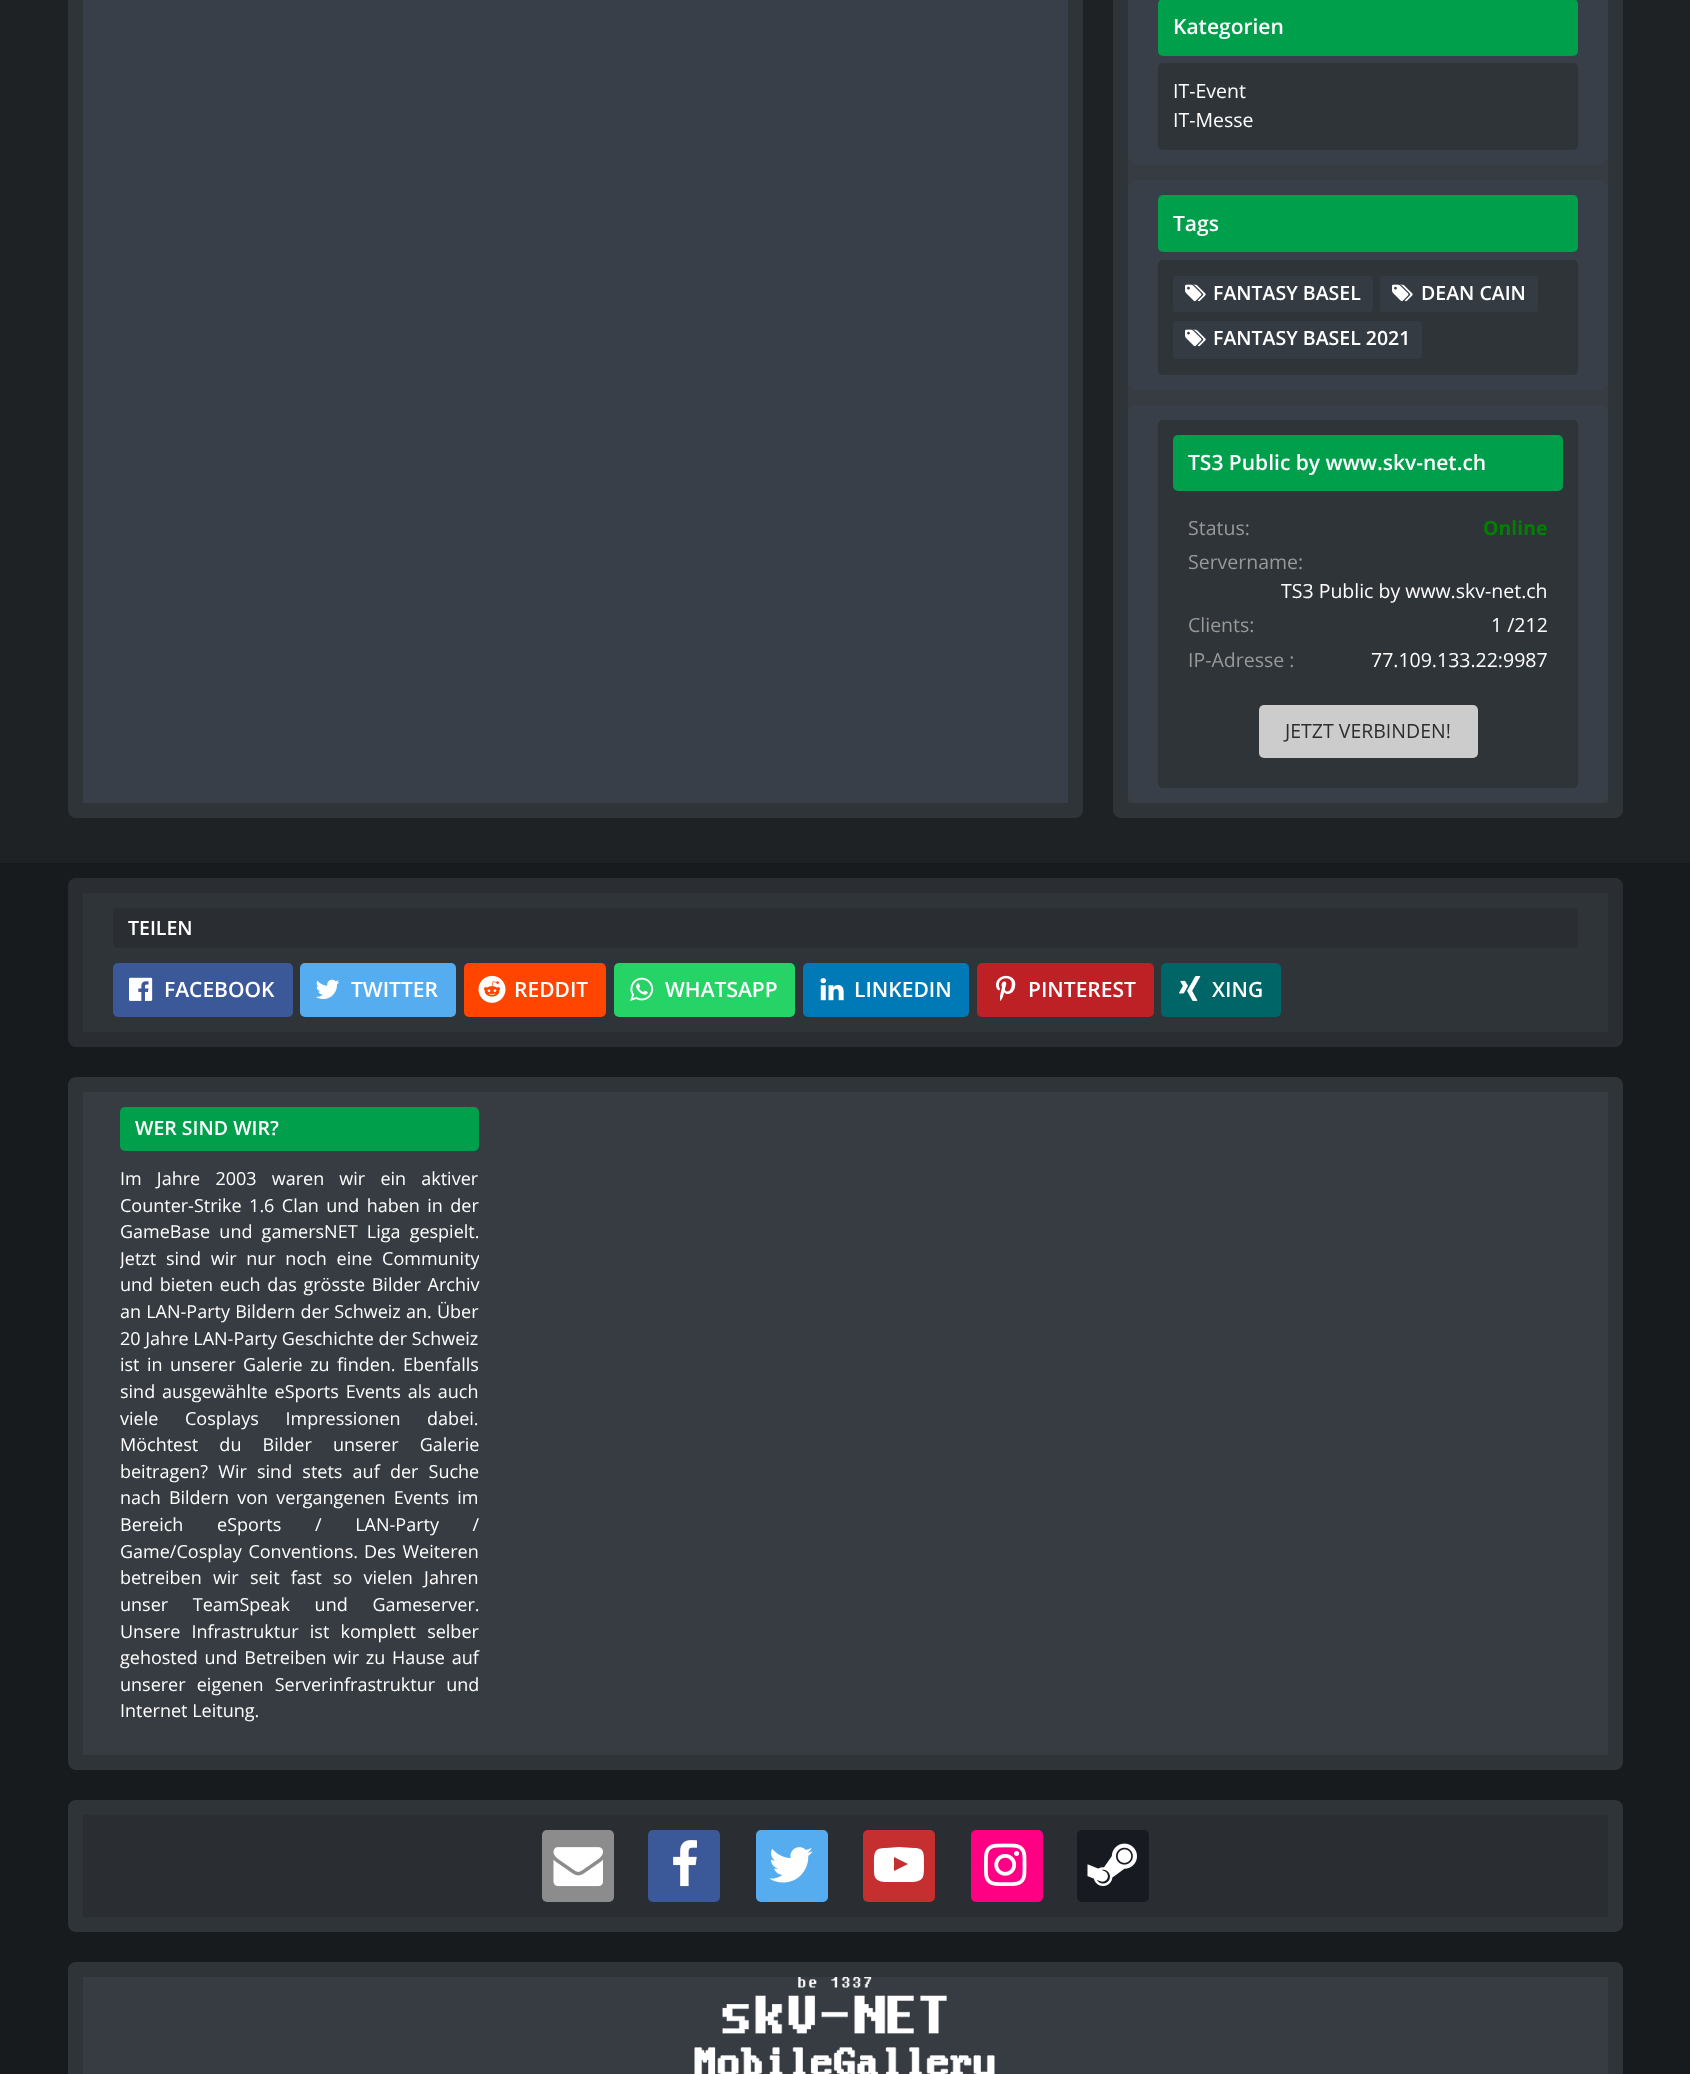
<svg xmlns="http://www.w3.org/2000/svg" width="1690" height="2074">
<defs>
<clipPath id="clip1"><rect x="120" y="1107" width="359" height="618"/></clipPath>
</defs>
<rect width="100%" height="100%" fill="#1f2225"/>
<rect x="75.5" y="-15.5" width="1000" height="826" rx="0.5" fill="#383f48" stroke="#2f3439" stroke-width="15"/>
<rect x="1120.5" y="-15.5" width="495" height="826" rx="0.5" fill="#363c42" stroke="#2f3439" stroke-width="15"/>
<rect x="1128" y="-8" width="480" height="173" rx="8" fill="#383f48"/>
<rect x="1158" y="-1" width="420" height="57" rx="5" fill="#009f4b"/>
<text x="1173" y="34" style="font-family:Open Sans;font-size:21px;font-weight:600;fill:#fff">Kategorien</text>
<rect x="1158" y="63" width="420" height="87" rx="5" fill="#2f3439"/>
<text x="1173" y="98" style="font-family:Open Sans;font-size:19.5px;fill:#fff">IT-Event</text>
<text x="1173" y="127" style="font-family:Open Sans;font-size:19.5px;fill:#fff">IT-Messe</text>
<rect x="1128" y="180" width="480" height="210" rx="8" fill="#383f48"/>
<rect x="1158" y="195" width="420" height="57" rx="5" fill="#009f4b"/>
<text x="1173" y="231" style="font-family:Open Sans;font-size:21px;font-weight:600;fill:#fff">Tags</text>
<rect x="1158" y="260" width="420" height="115" rx="5" fill="#2f3439"/>
<rect x="1173" y="276" width="200" height="36" rx="3" fill="#343b42"/>
<image x="1185" y="284" width="21" height="18" href="media/1.png"/>
<text x="1213" y="300" style="font-family:Open Sans;font-size:19.5px;font-weight:600;fill:#fff">FANTASY BASEL</text>
<rect x="1380" y="276" width="158" height="36" rx="3" fill="#343b42"/>
<image x="1392" y="284" width="21" height="18" href="media/1.png"/>
<text x="1421" y="300" style="font-family:Open Sans;font-size:19.5px;font-weight:600;fill:#fff">DEAN CAIN</text>
<rect x="1173" y="321" width="249" height="38" rx="3" fill="#343b42"/>
<image x="1185" y="329" width="21" height="18" href="media/1.png"/>
<text x="1213" y="345" style="font-family:Open Sans;font-size:19.5px;font-weight:600;fill:#fff">FANTASY BASEL 2021</text>
<rect x="1128" y="405" width="480" height="398" rx="8" fill="#383f48"/>
<rect x="1158" y="420" width="420" height="368" rx="5" fill="#2f3439"/>
<rect x="1173" y="435" width="390" height="56" rx="5" fill="#009f4b"/>
<text x="1188" y="470" style="font-family:Open Sans;font-size:21px;font-weight:600;fill:#fff">TS3 Public by www.skv-net.ch</text>
<text x="1188" y="535" style="font-family:Open Sans;font-size:19.5px;fill:#999">Status:</text>
<text x="1483" y="535" style="font-family:Open Sans;font-size:19.5px;font-weight:bold;fill:#008000">Online</text>
<text x="1188" y="569" style="font-family:Open Sans;font-size:19.5px;fill:#999">Servername:</text>
<text x="1281" y="598" style="font-family:Open Sans;font-size:19.5px;fill:#fff">TS3 Public by www.skv-net.ch</text>
<text x="1188" y="632" style="font-family:Open Sans;font-size:19.5px;fill:#999">Clients:</text>
<text x="1491" y="632" style="font-family:Open Sans;font-size:19.5px;fill:#fff">1 /212</text>
<text x="1188" y="667" style="font-family:Open Sans;font-size:19.5px;fill:#999">IP-Adresse :</text>
<text x="1371" y="667" style="font-family:Open Sans;font-size:19.5px;fill:#fff">77.109.133.22:9987</text>
<rect x="1259" y="705" width="219" height="53" rx="5" fill="#ccc"/>
<text x="1285" y="738" style="font-family:Open Sans;font-size:19.5px;fill:#2d2d2d">JETZT VERBINDEN!</text>
<rect y="863" width="1690" height="1211" fill="#181b1e"/>
<rect x="75.5" y="885.5" width="1540" height="154" rx="0.5" fill="#2f3439" stroke="#2a2e32" stroke-width="15"/>
<rect x="113" y="908" width="1465" height="40" rx="5" fill="#2a2e32"/>
<text x="128" y="935" style="font-family:Open Sans;font-size:19.5px;font-weight:600;fill:#fff">TEILEN</text>
<rect x="113" y="963" width="180" height="54" rx="5" fill="#3b5999"/>
<image x="129" y="977" width="24" height="24" href="media/2.png"/>
<text x="164" y="997" style="font-family:Open Sans;font-size:21px;font-weight:600;fill:#fff">FACEBOOK</text>
<rect x="300" y="963" width="156" height="54" rx="5" fill="#55acee"/>
<image x="315" y="979" width="25" height="20" href="media/3.png"/>
<text x="351" y="997" style="font-family:Open Sans;font-size:21px;font-weight:600;fill:#fff">TWITTER</text>
<rect x="464" y="963" width="142" height="54" rx="5" fill="#ff4500"/>
<image x="478" y="975" width="28" height="28" href="media/4.png"/>
<text x="514" y="997" style="font-family:Open Sans;font-size:21px;font-weight:600;fill:#fff">REDDIT</text>
<rect x="614" y="963" width="181" height="54" rx="5" fill="#25d366"/>
<image x="630" y="977" width="24" height="24" href="media/5.png"/>
<text x="665" y="997" style="font-family:Open Sans;font-size:21px;font-weight:600;fill:#fff">WHATSAPP</text>
<rect x="803" y="963" width="166" height="54" rx="5" fill="#007ab6"/>
<image x="820" y="978" width="24" height="23" href="media/6.png"/>
<text x="854" y="997" style="font-family:Open Sans;font-size:21px;font-weight:600;fill:#fff">LINKEDIN</text>
<rect x="977" y="963" width="177" height="54" rx="5" fill="#bd2125"/>
<image x="996" y="975" width="20" height="26" href="media/7.png"/>
<text x="1028" y="997" style="font-family:Open Sans;font-size:21px;font-weight:600;fill:#fff">PINTEREST</text>
<rect x="1161" y="963" width="120" height="54" rx="5" fill="#006567"/>
<image x="1179" y="976" width="22" height="25" href="media/8.png"/>
<text x="1212" y="997" style="font-family:Open Sans;font-size:21px;font-weight:600;fill:#fff">XING</text>
<rect x="75.5" y="1084.5" width="1540" height="678" rx="0.5" fill="#363c42" stroke="#2f3439" stroke-width="15"/>
<rect x="120" y="1107" width="359" height="44" rx="5" fill="#009f4b"/>
<text x="135" y="1135" style="font-family:Open Sans;font-size:19.5px;font-weight:600;fill:#fff">WER SIND WIR?</text>
<text x="120" y="1185" word-spacing="10.5" style="font-family:Open Sans;font-size:18px;fill:#fff">Im Jahre 2003 waren wir ein aktiver</text>
<text x="120" y="1212" word-spacing="2.75" style="font-family:Open Sans;font-size:18px;fill:#fff">Counter-Strike 1.6 Clan und haben in der</text>
<text x="120" y="1238" word-spacing="4.5" style="font-family:Open Sans;font-size:18px;fill:#fff">GameBase und gamersNET Liga gespielt.</text>
<g clip-path="url(#clip1)">
<text x="120" y="1265" word-spacing="5" style="font-family:Open Sans;font-size:18px;fill:#fff">Jetzt sind wir nur noch eine Community</text>
</g>
<text x="120" y="1291" word-spacing="2" style="font-family:Open Sans;font-size:18px;fill:#fff">und bieten euch das grösste Bilder Archiv</text>
<text x="120" y="1318" word-spacing="0.5" style="font-family:Open Sans;font-size:18px;fill:#fff">an LAN-Party Bildern der Schweiz an. Über</text>
<text x="120" y="1345" style="font-family:Open Sans;font-size:18px;fill:#fff">20 Jahre LAN-Party Geschichte der Schweiz</text>
<text x="120" y="1371" word-spacing="2.75" style="font-family:Open Sans;font-size:18px;fill:#fff">ist in unserer Galerie zu finden. Ebenfalls</text>
<text x="120" y="1398" word-spacing="2.25" style="font-family:Open Sans;font-size:18px;fill:#fff">sind ausgewählte eSports Events als auch</text>
<text x="120" y="1425" word-spacing="22" style="font-family:Open Sans;font-size:18px;fill:#fff">viele Cosplays Impressionen dabei.</text>
<text x="120" y="1451" word-spacing="16.5" style="font-family:Open Sans;font-size:18px;fill:#fff">Möchtest du Bilder unserer Galerie</text>
<text x="120" y="1478" word-spacing="5.5" style="font-family:Open Sans;font-size:18px;fill:#fff">beitragen? Wir sind stets auf der Suche</text>
<text x="120" y="1504" word-spacing="3.5" style="font-family:Open Sans;font-size:18px;fill:#fff">nach Bildern von vergangenen Events im</text>
<text x="120" y="1531" word-spacing="29" style="font-family:Open Sans;font-size:18px;fill:#fff">Bereich eSports / LAN-Party /</text>
<text x="120" y="1558" word-spacing="2" style="font-family:Open Sans;font-size:18px;fill:#fff">Game/Cosplay Conventions.</text>
<text x="364" y="1558" word-spacing="2" style="font-family:Open Sans;font-size:18px;fill:#fff">Des Weiteren</text>
<text x="120" y="1584" word-spacing="6.5" style="font-family:Open Sans;font-size:18px;fill:#fff">betreiben wir seit fast so vielen Jahren</text>
<text x="120" y="1611" word-spacing="20" style="font-family:Open Sans;font-size:18px;fill:#fff">unser TeamSpeak und Gameserver.</text>
<text x="120" y="1638" word-spacing="6.5" style="font-family:Open Sans;font-size:18px;fill:#fff">Unsere Infrastruktur ist komplett selber</text>
<text x="120" y="1664" word-spacing="2" style="font-family:Open Sans;font-size:18px;fill:#fff">gehosted und Betreiben wir zu Hause auf</text>
<text x="120" y="1691" word-spacing="6.5" style="font-family:Open Sans;font-size:18px;fill:#fff">unserer eigenen Serverinfrastruktur und</text>
<text x="120" y="1717" style="font-family:Open Sans;font-size:18px;fill:#fff">Internet Leitung.</text>
<rect x="75.5" y="1807.5" width="1540" height="117" rx="0.5" fill="#2a2e32" stroke="#2f3439" stroke-width="15"/>
<rect x="542" y="1830" width="72" height="72" rx="5" fill="#8c8c8c"/>
<image x="553" y="1847" width="50" height="40" href="media/9.png"/>
<rect x="648" y="1830" width="72" height="72" rx="5" fill="#3b5999"/>
<image x="673" y="1840" width="24" height="47" href="media/10.png"/>
<rect x="756" y="1830" width="72" height="72" rx="5" fill="#55acee"/>
<image x="769" y="1847" width="44" height="36" href="media/11.png"/>
<rect x="863" y="1830" width="72" height="72" rx="5" fill="#c52f30"/>
<path d="M894 1871l14-7l-14-7zm5-24l15 1c11 0 10 6 10 17c0 12 0 16-11 17h-28c-12-1-11-7-11-17c0-13 0-17 12-17z" fill="#fff"/>
<rect x="971" y="1830" width="72" height="72" rx="5" fill="#ff0084"/>
<image x="984" y="1843" width="43" height="43" href="media/12.png"/>
<rect x="1077" y="1830" width="72" height="72" rx="5" fill="#171a21"/>
<image x="1087" y="1843" width="50" height="43" href="media/13.png"/>
<rect x="75.5" y="1969.5" width="1540" height="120" rx="0.5" fill="#363c42" stroke="#2f3439" stroke-width="15"/>
<image x="694" y="1977" width="301" height="97" href="media/14.png"/>
</svg>
